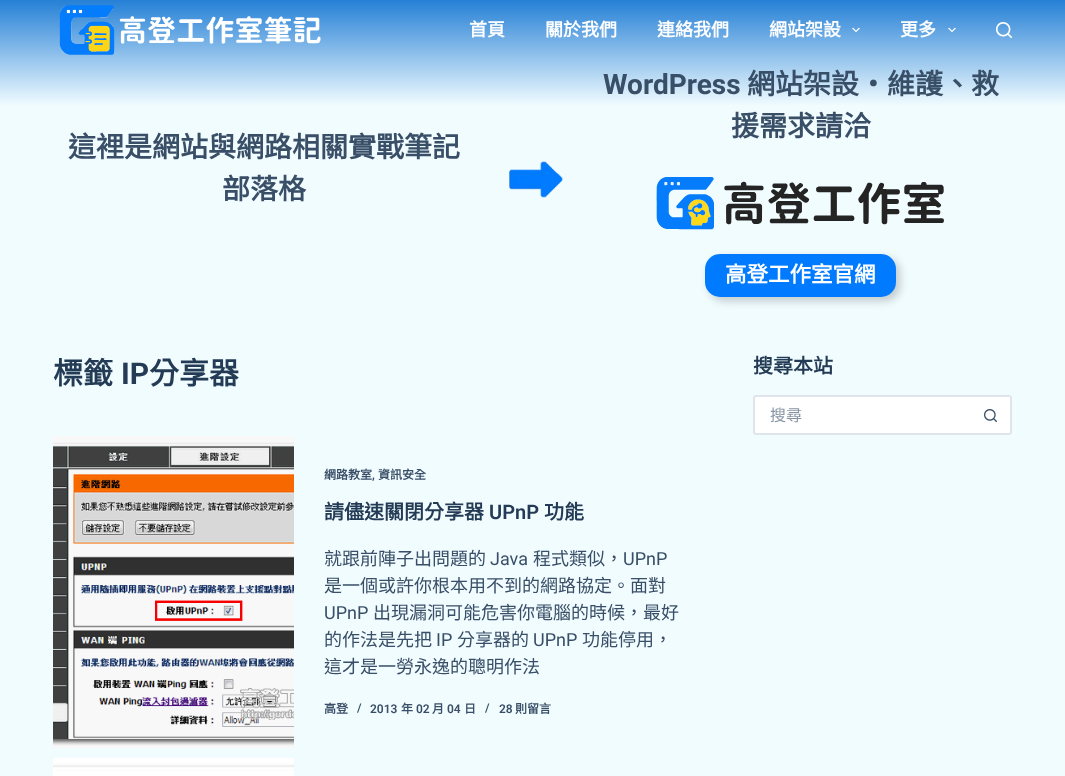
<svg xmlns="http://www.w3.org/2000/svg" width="1065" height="776">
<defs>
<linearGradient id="g1" gradientUnits="userSpaceOnUse" x1="533" y1="0" x2="533" y2="321"><stop offset="0" stop-color="#2580d6"/><stop offset="0.33" stop-color="#f1fcff"/><stop offset="1" stop-color="#f1fcff"/></linearGradient>
</defs>
<rect width="100%" height="100%" fill="#f1fcff"/>
<rect width="1065" height="105" fill="url(#g1)"/>
<image x="59" y="5" width="262" height="50" href="media/1.png"/>
<text x="469" y="36" style="font-family:Noto Sans CJK TC;font-size:18px;font-weight:bold;fill:#fff">首頁</text>
<text x="545" y="36" style="font-family:Noto Sans CJK TC;font-size:18px;font-weight:bold;fill:#fff">關於我們</text>
<text x="657" y="36" style="font-family:Noto Sans CJK TC;font-size:18px;font-weight:bold;fill:#fff">連絡我們</text>
<text x="769" y="36" style="font-family:Noto Sans CJK TC;font-size:18px;font-weight:bold;fill:#fff">網站架設</text>
<image x="852" y="27" width="8" height="6" href="media/2.png"/>
<text x="900" y="36" style="font-family:Noto Sans CJK TC;font-size:18px;font-weight:bold;fill:#fff">更多</text>
<image x="948" y="27" width="8" height="6" href="media/2.png"/>
<image x="996" y="22" width="16" height="16" href="media/3.png"/>
<text x="68" y="157" style="font-family:Noto Sans CJK TC;font-size:28px;font-weight:bold;fill:#394e67">這裡是網站與網路相關實戰筆記</text>
<text x="222" y="199" style="font-family:Noto Sans CJK TC;font-size:28px;font-weight:bold;fill:#394e67">部落格</text>
<image x="509" y="161" width="54" height="37" href="media/4.png"/>
<text x="603" y="94" style="font-family:Roboto;font-size:28px;font-weight:bold;fill:#394e67">WordPress</text>
<text x="747" y="94" style="font-family:Noto Sans CJK TC;font-size:28px;font-weight:bold;fill:#394e67">網站架設・維護、救</text>
<text x="731" y="136" style="font-family:Noto Sans CJK TC;font-size:28px;font-weight:bold;fill:#394e67">援需求請洽</text>
<image x="656" y="177" width="288" height="53" href="media/5.png"/>
<rect x="709" y="258" width="191" height="43" rx="15" fill="#00000033" filter="blur(4px)"/>
<rect x="705" y="254" width="191" height="43" rx="15" fill="#007bff"/>
<text x="725" y="282" style="font-family:Noto Sans CJK TC;font-size:21.5px;font-weight:bold;fill:#fff">高登工作室官網</text>
<text x="53" y="384" style="font-family:Noto Sans CJK TC;font-size:30px;font-weight:bold;fill:#243b56">標籤</text>
<text x="121" y="384" style="font-family:Roboto;font-size:30px;font-weight:bold;fill:#243b56">IP</text>
<text x="149" y="384" style="font-family:Noto Sans CJK TC;font-size:30px;font-weight:bold;fill:#243b56">分享器</text>
<image x="53" y="436" width="241" height="312" href="media/6.png"/>
<text x="324" y="479" style="font-family:Noto Sans CJK TC;font-size:12px;font-weight:bold;fill:#394e67">網路教室</text>
<text x="372" y="479" style="font-family:Roboto;font-size:12px;font-weight:600;fill:#394e67">,</text>
<text x="378" y="479" style="font-family:Noto Sans CJK TC;font-size:12px;font-weight:bold;fill:#394e67">資訊安全</text>
<text x="324" y="519" style="font-family:Noto Sans CJK TC;font-size:20px;font-weight:bold;fill:#243b56">請儘速關閉分享器</text>
<text x="489" y="519" style="font-family:Roboto;font-size:20px;font-weight:600;fill:#243b56">UPnP</text>
<text x="544" y="519" style="font-family:Noto Sans CJK TC;font-size:20px;font-weight:bold;fill:#243b56">功能</text>
<text x="324" y="565" style="font-family:Noto Sans CJK TC;font-size:18px;fill:#394e67">就跟前陣子出問題的</text>
<text x="490" y="565" style="font-family:Roboto;font-size:18px;fill:#394e67">Java</text>
<text x="533" y="565" style="font-family:Noto Sans CJK TC;font-size:18px;fill:#394e67">程式類似，</text>
<text x="623" y="565" style="font-family:Roboto;font-size:18px;fill:#394e67">UPnP</text>
<text x="324" y="592" style="font-family:Noto Sans CJK TC;font-size:18px;fill:#394e67">是一個或許你根本用不到的網路協定。面對</text>
<text x="324" y="619" style="font-family:Roboto;font-size:18px;fill:#394e67">UPnP</text>
<text x="373" y="619" style="font-family:Noto Sans CJK TC;font-size:18px;fill:#394e67">出現漏洞可能危害你電腦的時候，最好</text>
<text x="324" y="646" style="font-family:Noto Sans CJK TC;font-size:18px;fill:#394e67">的作法是先把</text>
<text x="436" y="646" style="font-family:Roboto;font-size:18px;fill:#394e67">IP</text>
<text x="457" y="646" style="font-family:Noto Sans CJK TC;font-size:18px;fill:#394e67">分享器的</text>
<text x="533" y="646" style="font-family:Roboto;font-size:18px;fill:#394e67">UPnP</text>
<text x="582" y="646" style="font-family:Noto Sans CJK TC;font-size:18px;fill:#394e67">功能停用，</text>
<text x="324" y="673" style="font-family:Noto Sans CJK TC;font-size:18px;fill:#394e67">這才是一勞永逸的聰明作法</text>
<text x="324" y="713" style="font-family:Noto Sans CJK TC;font-size:12px;font-weight:bold;fill:#394e67">高登</text>
<text x="357" y="712" style="font-family:Roboto;font-size:12px;font-weight:600;fill:#394e67">/</text>
<text x="370" y="713" style="font-family:Roboto;font-size:12px;font-weight:600;fill:#394e67">2013</text>
<text x="401" y="713" style="font-family:Noto Sans CJK TC;font-size:12px;font-weight:bold;fill:#394e67">年</text>
<text x="416" y="713" style="font-family:Roboto;font-size:12px;font-weight:600;fill:#394e67">02</text>
<text x="432" y="713" style="font-family:Noto Sans CJK TC;font-size:12px;font-weight:bold;fill:#394e67">月</text>
<text x="447" y="713" style="font-family:Roboto;font-size:12px;font-weight:600;fill:#394e67">04</text>
<text x="464" y="713" style="font-family:Noto Sans CJK TC;font-size:12px;font-weight:bold;fill:#394e67">日</text>
<text x="485" y="712" style="font-family:Roboto;font-size:12px;font-weight:600;fill:#394e67">/</text>
<text x="499" y="713" style="font-family:Roboto;font-size:12px;font-weight:600;fill:#394e67">28</text>
<text x="515" y="713" style="font-family:Noto Sans CJK TC;font-size:12px;font-weight:bold;fill:#394e67">則留言</text>
<image x="53" y="758" width="241" height="18" href="media/7.png"/>
<text x="753" y="373" style="font-family:Noto Sans CJK TC;font-size:20px;font-weight:bold;fill:#243b56">搜尋本站</text>
<path d="M756 395h216v40h-216c-1.5 0-3-1.5-3-3v-34c0-1.5 1.5-3 3-3z" fill="#fff"/>
<path d="M756 395h216v40h-216c-2 0-3-1-3-3v-34c0-2 1-3 3-3zm0 2h216v36h-216l-1-1v-34z" fill="#e0e5eb" fill-rule="evenodd"/>
<text x="770" y="421" style="font-family:Noto Sans CJK TC;font-size:16px;fill:#8995a4">搜尋</text>
<path d="M972 395h37c1.5 0 3 1.5 3 3v34c0 1.5-1.5 3-3 3h-37z" fill="#fff"/>
<path d="M972 395h37c2 0 3 1 3 3v34c0 2-1 3-3 3h-37zm0 2h37c1 0 1 0 1 1v34c0 1 0 1-1 1h-37z" fill="#e0e5eb" fill-rule="evenodd"/>
<image x="984" y="409" width="13" height="13" href="media/8.png"/>
</svg>
